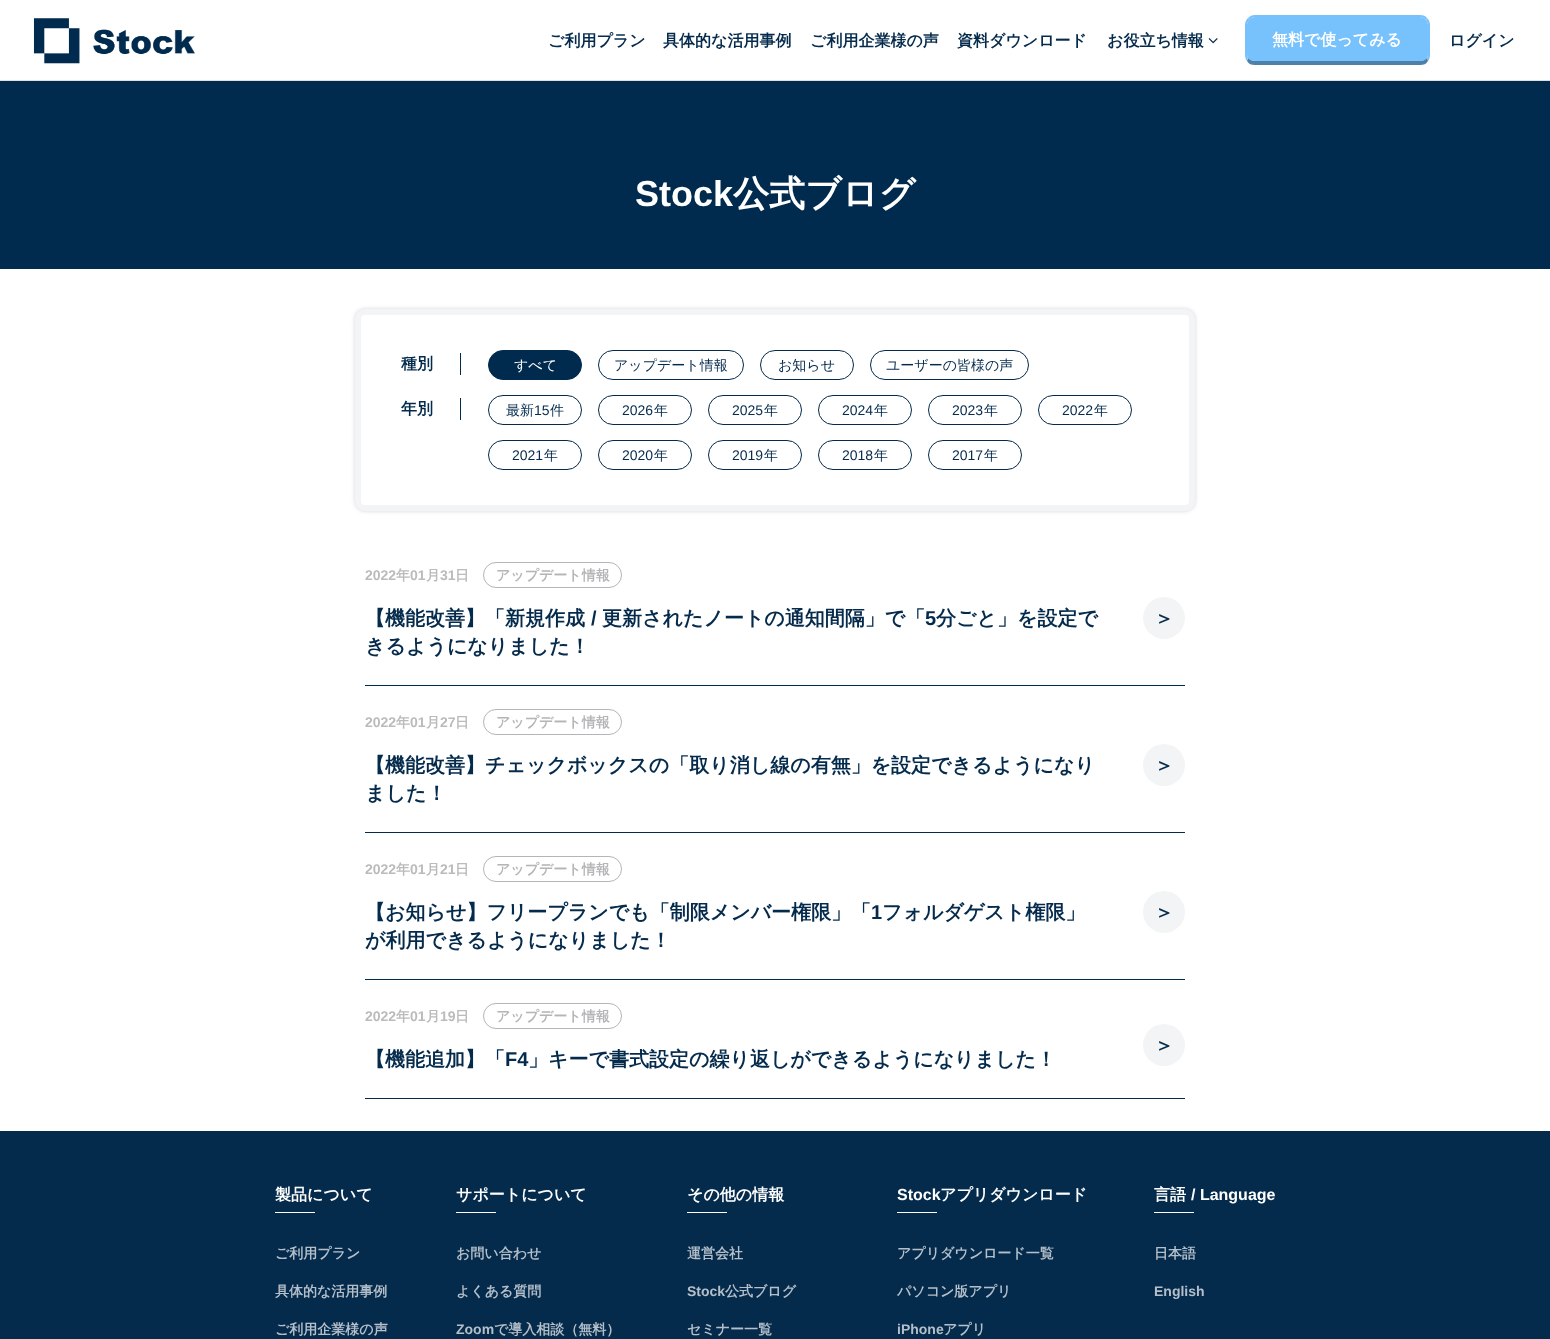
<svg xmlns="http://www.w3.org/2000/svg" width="1550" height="1339">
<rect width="100%" height="100%" fill="#fff"/>
<rect y="80" width="1550" height="1" fill="#dfdfdf"/>
<image x="33" y="18" width="162" height="46" href="media/1.png"/>
<text x="548" y="46" style="font-family:WenQuanYi Zen Hei;font-size:16px;font-weight:bold;fill:#042a4c">ご利用プラン</text>
<text x="663" y="46" style="font-family:WenQuanYi Zen Hei;font-size:16px;font-weight:bold;fill:#042a4c">具体的な活用事例</text>
<text x="810" y="46" style="font-family:WenQuanYi Zen Hei;font-size:16px;font-weight:bold;fill:#042a4c">ご利用企業様の声</text>
<text x="957" y="46" style="font-family:WenQuanYi Zen Hei;font-size:16px;font-weight:bold;fill:#042a4c">資料ダウンロード</text>
<text x="1107" y="46" style="font-family:WenQuanYi Zen Hei;font-size:16px;font-weight:bold;fill:#042a4c">お役立ち情報</text>
<image x="1208" y="38" width="10" height="6" href="media/2.png"/>
<path d="M1255 17h165c4 0 8 4 8 8v30c0 3-4 6-8 6h-165c-4 0-8-3-8-6v-30c0-4 4-8 8-8z" fill="#77c2fd"/>
<path d="M1255 15c-3 0-5 1-7 3l2 2c1-2 3-3 5-3h165c2 0 4 1 6 3l1-2c-1-2-4-3-7-3z" fill="#77c2fd"/>
<path d="M1430 55v-30c0-3-1-5-3-7l-1 2c1 1 2 3 2 5v30c0 1-1 2-1 3l1 3c1-1 2-4 2-6z" fill="#77c2fd"/>
<path d="M1255 65h165c4 0 6-1 8-4l-1-3c-2 2-4 3-7 3h-165c-3 0-5-1-7-3l-1 3c2 3 4 4 8 4z" fill="#4d81aa"/>
<path d="M1245 25v30c0 2 1 5 2 6l1-3c0-1-1-2-1-3v-30c0-2 1-4 3-5l-2-2c-2 2-3 4-3 7z" fill="#77c2fd"/>
<text x="1272" y="45" style="font-family:WenQuanYi Zen Hei;font-size:16px;font-weight:bold;fill:#fff">無料で使ってみる</text>
<text x="1449" y="46" style="font-family:WenQuanYi Zen Hei;font-size:16px;font-weight:bold;fill:#042a4c">ログイン</text>
<rect y="81" width="1550" height="188" fill="#002b4e"/>
<text x="635" y="206" style="font-family:Liberation Sans;font-size:36px;font-weight:bold;fill:#fff">Stock</text>
<text x="733" y="206" style="font-family:WenQuanYi Zen Hei;font-size:36px;font-weight:bold;fill:#fff">公式ブログ</text>
<rect x="355" y="309" width="840" height="202" rx="10" fill="#cacacacc" filter="blur(2px)"/>
<rect x="358" y="312" width="834" height="196" rx="7" fill="#fff" stroke="#f3f4f5" stroke-width="6"/>
<text x="401" y="369" style="font-family:WenQuanYi Zen Hei;font-size:16px;font-weight:bold;fill:#042a4c">種別</text>
<rect x="460" y="353" width="1" height="22" fill="#042a4c"/>
<rect x="488.5" y="350.5" width="93" height="29" rx="14.5" fill="#002b4e" stroke="#002b4e"/>
<text x="514" y="370" style="font-family:WenQuanYi Zen Hei;font-size:14px;font-weight:500;fill:#fff">すべて</text>
<rect x="598.5" y="350.5" width="145" height="29" rx="14.5" fill="none" stroke="#042a4c"/>
<text x="614" y="370" style="font-family:WenQuanYi Zen Hei;font-size:14px;font-weight:500;fill:#042a4c">アップデート情報</text>
<rect x="760.5" y="350.5" width="93" height="29" rx="14.5" fill="none" stroke="#042a4c"/>
<text x="778" y="370" style="font-family:WenQuanYi Zen Hei;font-size:14px;font-weight:500;fill:#042a4c">お知らせ</text>
<rect x="870.5" y="350.5" width="158" height="29" rx="14.5" fill="none" stroke="#042a4c"/>
<text x="886" y="370" style="font-family:WenQuanYi Zen Hei;font-size:14px;font-weight:500;fill:#042a4c">ユーザーの皆様の声</text>
<text x="401" y="414" style="font-family:WenQuanYi Zen Hei;font-size:16px;font-weight:bold;fill:#042a4c">年別</text>
<rect x="460" y="398" width="1" height="22" fill="#042a4c"/>
<rect x="488.5" y="395.5" width="93" height="29" rx="14.5" fill="none" stroke="#042a4c"/>
<text x="506" y="415" style="font-family:WenQuanYi Zen Hei;font-size:14px;font-weight:500;fill:#042a4c">最新</text>
<text x="534" y="415" style="font-family:Liberation Sans;font-size:14px;fill:#042a4c">15</text>
<text x="550" y="415" style="font-family:WenQuanYi Zen Hei;font-size:14px;font-weight:500;fill:#042a4c">件</text>
<rect x="598.5" y="395.5" width="93" height="29" rx="14.5" fill="none" stroke="#042a4c"/>
<text x="622" y="415" style="font-family:Liberation Sans;font-size:14px;fill:#042a4c">2026</text>
<text x="654" y="415" style="font-family:WenQuanYi Zen Hei;font-size:14px;font-weight:500;fill:#042a4c">年</text>
<rect x="708.5" y="395.5" width="93" height="29" rx="14.5" fill="none" stroke="#042a4c"/>
<text x="732" y="415" style="font-family:Liberation Sans;font-size:14px;fill:#042a4c">2025</text>
<text x="764" y="415" style="font-family:WenQuanYi Zen Hei;font-size:14px;font-weight:500;fill:#042a4c">年</text>
<rect x="818.5" y="395.5" width="93" height="29" rx="14.5" fill="none" stroke="#042a4c"/>
<text x="842" y="415" style="font-family:Liberation Sans;font-size:14px;fill:#042a4c">2024</text>
<text x="874" y="415" style="font-family:WenQuanYi Zen Hei;font-size:14px;font-weight:500;fill:#042a4c">年</text>
<rect x="928.5" y="395.5" width="93" height="29" rx="14.5" fill="none" stroke="#042a4c"/>
<text x="952" y="415" style="font-family:Liberation Sans;font-size:14px;fill:#042a4c">2023</text>
<text x="984" y="415" style="font-family:WenQuanYi Zen Hei;font-size:14px;font-weight:500;fill:#042a4c">年</text>
<rect x="1038.5" y="395.5" width="93" height="29" rx="14.5" fill="none" stroke="#042a4c"/>
<text x="1062" y="415" style="font-family:Liberation Sans;font-size:14px;fill:#042a4c">2022</text>
<text x="1094" y="415" style="font-family:WenQuanYi Zen Hei;font-size:14px;font-weight:500;fill:#042a4c">年</text>
<rect x="488.5" y="440.5" width="93" height="29" rx="14.5" fill="none" stroke="#042a4c"/>
<text x="512" y="460" style="font-family:Liberation Sans;font-size:14px;fill:#042a4c">2021</text>
<text x="544" y="460" style="font-family:WenQuanYi Zen Hei;font-size:14px;font-weight:500;fill:#042a4c">年</text>
<rect x="598.5" y="440.5" width="93" height="29" rx="14.5" fill="none" stroke="#042a4c"/>
<text x="622" y="460" style="font-family:Liberation Sans;font-size:14px;fill:#042a4c">2020</text>
<text x="654" y="460" style="font-family:WenQuanYi Zen Hei;font-size:14px;font-weight:500;fill:#042a4c">年</text>
<rect x="708.5" y="440.5" width="93" height="29" rx="14.5" fill="none" stroke="#042a4c"/>
<text x="732" y="460" style="font-family:Liberation Sans;font-size:14px;fill:#042a4c">2019</text>
<text x="764" y="460" style="font-family:WenQuanYi Zen Hei;font-size:14px;font-weight:500;fill:#042a4c">年</text>
<rect x="818.5" y="440.5" width="93" height="29" rx="14.5" fill="none" stroke="#042a4c"/>
<text x="842" y="460" style="font-family:Liberation Sans;font-size:14px;fill:#042a4c">2018</text>
<text x="874" y="460" style="font-family:WenQuanYi Zen Hei;font-size:14px;font-weight:500;fill:#042a4c">年</text>
<rect x="928.5" y="440.5" width="93" height="29" rx="14.5" fill="none" stroke="#042a4c"/>
<text x="952" y="460" style="font-family:Liberation Sans;font-size:14px;fill:#042a4c">2017</text>
<text x="984" y="460" style="font-family:WenQuanYi Zen Hei;font-size:14px;font-weight:500;fill:#042a4c">年</text>
<rect x="365" y="685" width="820" height="1" fill="#042a4c"/>
<text x="365" y="580" style="font-family:Liberation Sans;font-size:14px;font-weight:bold;fill:#bbb">2022</text>
<text x="396" y="580" style="font-family:WenQuanYi Zen Hei;font-size:14px;font-weight:bold;fill:#bbb">年</text>
<text x="410" y="580" style="font-family:Liberation Sans;font-size:14px;font-weight:bold;fill:#bbb">01</text>
<text x="426" y="580" style="font-family:WenQuanYi Zen Hei;font-size:14px;font-weight:bold;fill:#bbb">月</text>
<text x="440" y="580" style="font-family:Liberation Sans;font-size:14px;font-weight:bold;fill:#bbb">31</text>
<text x="455" y="580" style="font-family:WenQuanYi Zen Hei;font-size:14px;font-weight:bold;fill:#bbb">日</text>
<rect x="483.5" y="562.5" width="138" height="25" rx="12.5" fill="none" stroke="#b4b5b7"/>
<text x="496" y="580" style="font-family:WenQuanYi Zen Hei;font-size:14px;font-weight:bold;fill:#b4b5b7">アップデート情報</text>
<text x="365" y="625" style="font-family:WenQuanYi Zen Hei;font-size:20px;font-weight:bold;fill:#042a4c">【機能改善】「新規作成</text>
<text x="591" y="625" style="font-family:Liberation Sans;font-size:20px;font-weight:bold;fill:#042a4c">/</text>
<text x="602" y="625" style="font-family:WenQuanYi Zen Hei;font-size:20px;font-weight:bold;fill:#042a4c">更新されたノートの通知間隔」で「</text>
<text x="925" y="625" style="font-family:Liberation Sans;font-size:20px;font-weight:bold;fill:#042a4c">5</text>
<text x="936" y="625" style="font-family:WenQuanYi Zen Hei;font-size:20px;font-weight:bold;fill:#042a4c">分ごと」を設定で</text>
<text x="365" y="653" style="font-family:WenQuanYi Zen Hei;font-size:20px;font-weight:bold;fill:#042a4c">きるようになりました！</text>
<circle cx="1164" cy="618" r="21" fill="#f3f4f5"/>
<text x="1154" y="625" style="font-family:WenQuanYi Zen Hei;font-size:20px;font-weight:bold;fill:#042a4c">＞</text>
<rect x="365" y="832" width="820" height="1" fill="#042a4c"/>
<text x="365" y="727" style="font-family:Liberation Sans;font-size:14px;font-weight:bold;fill:#bbb">2022</text>
<text x="396" y="727" style="font-family:WenQuanYi Zen Hei;font-size:14px;font-weight:bold;fill:#bbb">年</text>
<text x="410" y="727" style="font-family:Liberation Sans;font-size:14px;font-weight:bold;fill:#bbb">01</text>
<text x="426" y="727" style="font-family:WenQuanYi Zen Hei;font-size:14px;font-weight:bold;fill:#bbb">月</text>
<text x="440" y="727" style="font-family:Liberation Sans;font-size:14px;font-weight:bold;fill:#bbb">27</text>
<text x="455" y="727" style="font-family:WenQuanYi Zen Hei;font-size:14px;font-weight:bold;fill:#bbb">日</text>
<rect x="483.5" y="709.5" width="138" height="25" rx="12.5" fill="none" stroke="#b4b5b7"/>
<text x="496" y="727" style="font-family:WenQuanYi Zen Hei;font-size:14px;font-weight:bold;fill:#b4b5b7">アップデート情報</text>
<text x="365" y="772" style="font-family:WenQuanYi Zen Hei;font-size:20px;font-weight:bold;fill:#042a4c">【機能改善】チェックボックスの「取り消し線の有無」を設定できるようになり</text>
<text x="365" y="800" style="font-family:WenQuanYi Zen Hei;font-size:20px;font-weight:bold;fill:#042a4c">ました！</text>
<circle cx="1164" cy="765" r="21" fill="#f3f4f5"/>
<text x="1154" y="772" style="font-family:WenQuanYi Zen Hei;font-size:20px;font-weight:bold;fill:#042a4c">＞</text>
<rect x="365" y="979" width="820" height="1" fill="#042a4c"/>
<text x="365" y="874" style="font-family:Liberation Sans;font-size:14px;font-weight:bold;fill:#bbb">2022</text>
<text x="396" y="874" style="font-family:WenQuanYi Zen Hei;font-size:14px;font-weight:bold;fill:#bbb">年</text>
<text x="410" y="874" style="font-family:Liberation Sans;font-size:14px;font-weight:bold;fill:#bbb">01</text>
<text x="426" y="874" style="font-family:WenQuanYi Zen Hei;font-size:14px;font-weight:bold;fill:#bbb">月</text>
<text x="440" y="874" style="font-family:Liberation Sans;font-size:14px;font-weight:bold;fill:#bbb">21</text>
<text x="455" y="874" style="font-family:WenQuanYi Zen Hei;font-size:14px;font-weight:bold;fill:#bbb">日</text>
<rect x="483.5" y="856.5" width="138" height="25" rx="12.5" fill="none" stroke="#b4b5b7"/>
<text x="496" y="874" style="font-family:WenQuanYi Zen Hei;font-size:14px;font-weight:bold;fill:#b4b5b7">アップデート情報</text>
<text x="365" y="919" style="font-family:WenQuanYi Zen Hei;font-size:20px;font-weight:bold;fill:#042a4c">【お知らせ】フリープランでも「制限メンバー権限」「</text>
<text x="871" y="919" style="font-family:Liberation Sans;font-size:20px;font-weight:bold;fill:#042a4c">1</text>
<text x="882" y="919" style="font-family:WenQuanYi Zen Hei;font-size:20px;font-weight:bold;fill:#042a4c">フォルダゲスト権限」</text>
<text x="365" y="947" style="font-family:WenQuanYi Zen Hei;font-size:20px;font-weight:bold;fill:#042a4c">が利用できるようになりました！</text>
<circle cx="1164" cy="912" r="21" fill="#f3f4f5"/>
<text x="1154" y="919" style="font-family:WenQuanYi Zen Hei;font-size:20px;font-weight:bold;fill:#042a4c">＞</text>
<rect x="365" y="1098" width="820" height="1" fill="#042a4c"/>
<text x="365" y="1021" style="font-family:Liberation Sans;font-size:14px;font-weight:bold;fill:#bbb">2022</text>
<text x="396" y="1021" style="font-family:WenQuanYi Zen Hei;font-size:14px;font-weight:bold;fill:#bbb">年</text>
<text x="410" y="1021" style="font-family:Liberation Sans;font-size:14px;font-weight:bold;fill:#bbb">01</text>
<text x="426" y="1021" style="font-family:WenQuanYi Zen Hei;font-size:14px;font-weight:bold;fill:#bbb">月</text>
<text x="440" y="1021" style="font-family:Liberation Sans;font-size:14px;font-weight:bold;fill:#bbb">19</text>
<text x="455" y="1021" style="font-family:WenQuanYi Zen Hei;font-size:14px;font-weight:bold;fill:#bbb">日</text>
<rect x="483.5" y="1003.5" width="138" height="25" rx="12.5" fill="none" stroke="#b4b5b7"/>
<text x="496" y="1021" style="font-family:WenQuanYi Zen Hei;font-size:14px;font-weight:bold;fill:#b4b5b7">アップデート情報</text>
<circle cx="1164" cy="1045" r="21" fill="#f3f4f5"/>
<text x="1154" y="1052" style="font-family:WenQuanYi Zen Hei;font-size:20px;font-weight:bold;fill:#042a4c">＞</text>
<text x="365" y="1066" style="font-family:WenQuanYi Zen Hei;font-size:20px;font-weight:bold;fill:#042a4c">【機能追加】「</text>
<text x="505" y="1066" style="font-family:Liberation Sans;font-size:20px;font-weight:bold;fill:#042a4c">F4</text>
<text x="528" y="1066" style="font-family:WenQuanYi Zen Hei;font-size:20px;font-weight:bold;fill:#042a4c">」キーで書式設定の繰り返しができるようになりました！</text>
<rect y="1131" width="1550" height="208" fill="#042a4c"/>
<text x="275" y="1200" style="font-family:WenQuanYi Zen Hei;font-size:16px;font-weight:bold;fill:#fff">製品について</text>
<rect x="275" y="1212" width="40" height="1" fill="#fff"/>
<text x="275" y="1258" style="font-family:WenQuanYi Zen Hei;font-size:14px;font-weight:bold;fill:#b4bfc9">ご利用プラン</text>
<text x="275" y="1296" style="font-family:WenQuanYi Zen Hei;font-size:14px;font-weight:bold;fill:#b4bfc9">具体的な活用事例</text>
<text x="275" y="1334" style="font-family:WenQuanYi Zen Hei;font-size:14px;font-weight:bold;fill:#b4bfc9">ご利用企業様の声</text>
<text x="456" y="1200" style="font-family:WenQuanYi Zen Hei;font-size:16px;font-weight:bold;fill:#fff">サポートについて</text>
<rect x="456" y="1212" width="40" height="1" fill="#fff"/>
<text x="456" y="1258" style="font-family:WenQuanYi Zen Hei;font-size:14px;font-weight:bold;fill:#b4bfc9">お問い合わせ</text>
<text x="456" y="1296" style="font-family:WenQuanYi Zen Hei;font-size:14px;font-weight:bold;fill:#b4bfc9">よくある質問</text>
<text x="456" y="1334" style="font-family:Liberation Sans;font-size:14px;font-weight:bold;fill:#b4bfc9">Zoom</text>
<text x="494" y="1334" style="font-family:WenQuanYi Zen Hei;font-size:14px;font-weight:bold;fill:#b4bfc9">で導入相談（無料）</text>
<text x="687" y="1200" style="font-family:WenQuanYi Zen Hei;font-size:16px;font-weight:bold;fill:#fff">その他の情報</text>
<rect x="687" y="1212" width="40" height="1" fill="#fff"/>
<text x="687" y="1258" style="font-family:WenQuanYi Zen Hei;font-size:14px;font-weight:bold;fill:#b4bfc9">運営会社</text>
<text x="687" y="1296" style="font-family:Liberation Sans;font-size:14px;font-weight:bold;fill:#b4bfc9">Stock</text>
<text x="725" y="1296" style="font-family:WenQuanYi Zen Hei;font-size:14px;font-weight:bold;fill:#b4bfc9">公式ブログ</text>
<text x="687" y="1334" style="font-family:WenQuanYi Zen Hei;font-size:14px;font-weight:bold;fill:#b4bfc9">セミナー一覧</text>
<text x="897" y="1200" style="font-family:Liberation Sans;font-size:16px;font-weight:bold;fill:#fff">Stock</text>
<text x="940" y="1200" style="font-family:WenQuanYi Zen Hei;font-size:16px;font-weight:bold;fill:#fff">アプリダウンロード</text>
<rect x="897" y="1212" width="40" height="1" fill="#fff"/>
<text x="897" y="1258" style="font-family:WenQuanYi Zen Hei;font-size:14px;font-weight:bold;fill:#b4bfc9">アプリダウンロード一覧</text>
<text x="897" y="1296" style="font-family:WenQuanYi Zen Hei;font-size:14px;font-weight:bold;fill:#b4bfc9">パソコン版アプリ</text>
<text x="897" y="1334" style="font-family:Liberation Sans;font-size:14px;font-weight:bold;fill:#b4bfc9">iPhone</text>
<text x="943" y="1334" style="font-family:WenQuanYi Zen Hei;font-size:14px;font-weight:bold;fill:#b4bfc9">アプリ</text>
<text x="1154" y="1200" style="font-family:WenQuanYi Zen Hei;font-size:16px;font-weight:bold;fill:#fff">言語</text>
<text x="1191" y="1200" style="font-family:Liberation Sans;font-size:16px;font-weight:bold;fill:#fff">/ Language</text>
<rect x="1154" y="1212" width="40" height="1" fill="#fff"/>
<text x="1154" y="1258" style="font-family:WenQuanYi Zen Hei;font-size:14px;font-weight:bold;fill:#b4bfc9">日本語</text>
<text x="1154" y="1296" style="font-family:Liberation Sans;font-size:14px;font-weight:bold;fill:#b4bfc9">English</text>
</svg>
